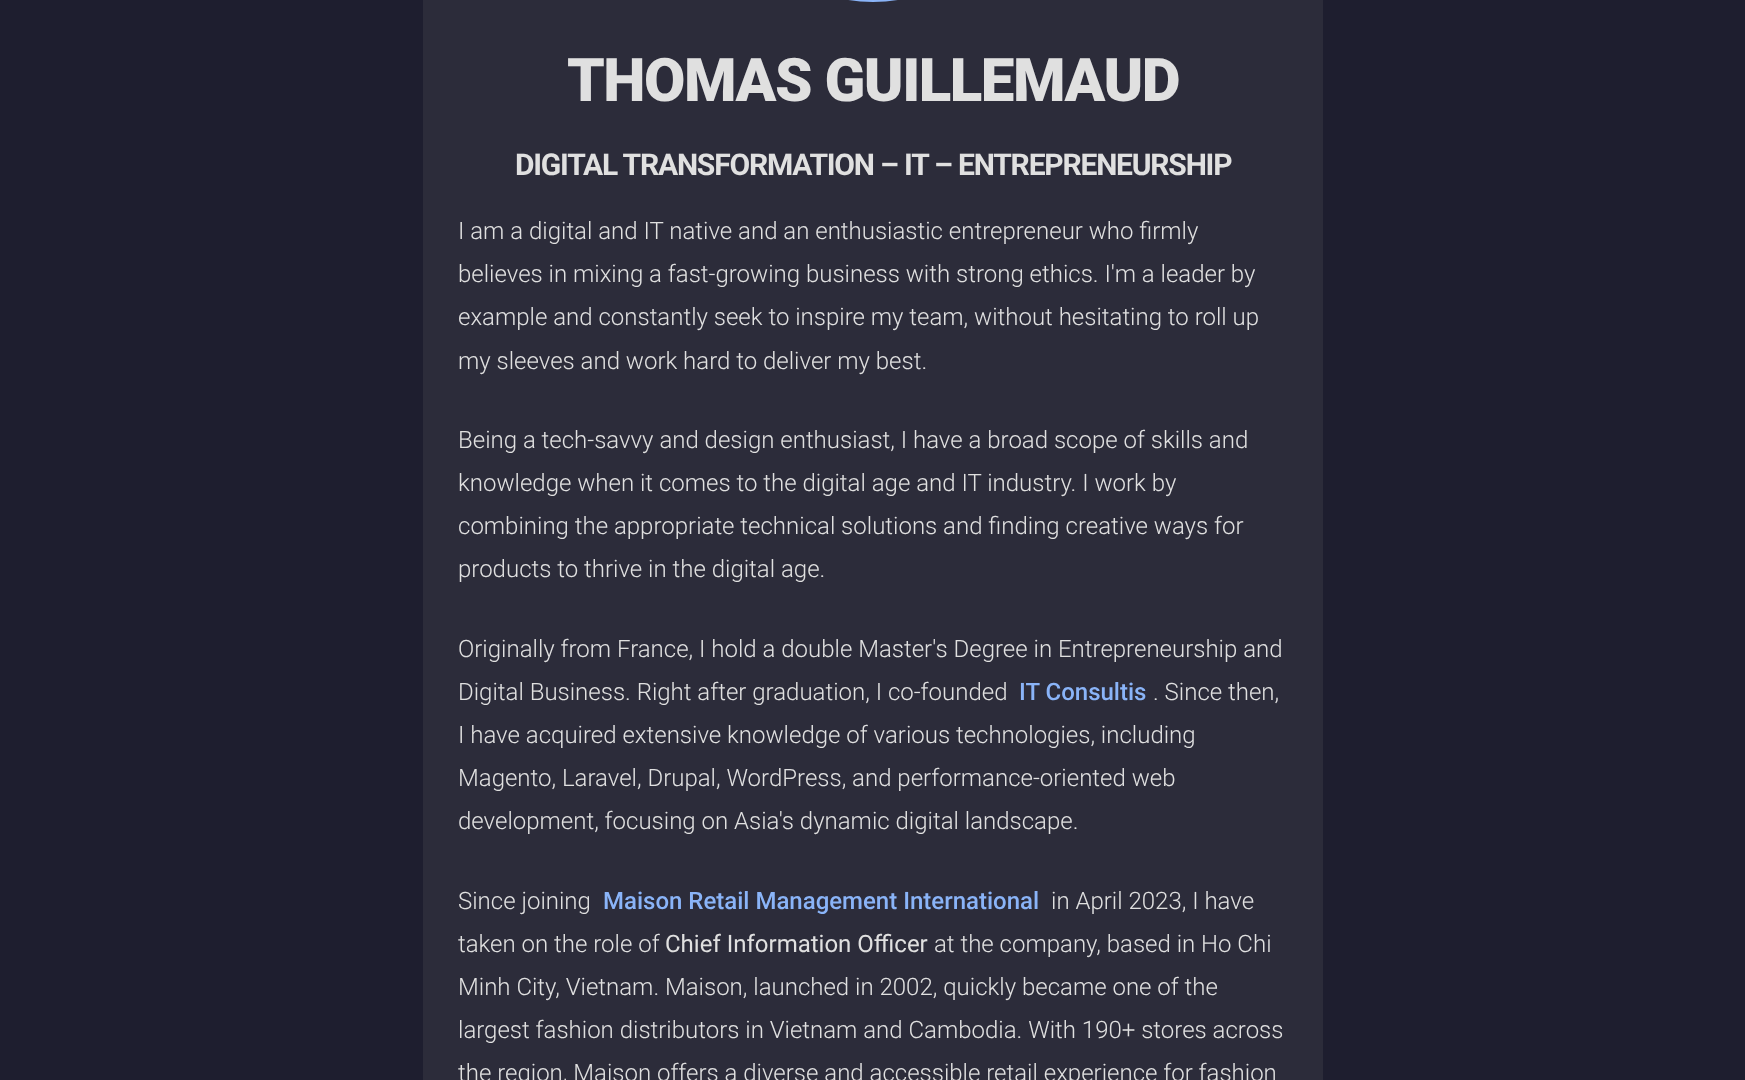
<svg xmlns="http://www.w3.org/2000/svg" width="1745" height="1080">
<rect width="100%" height="100%" fill="#1e1e2f"/>
<rect x="423" width="900" height="1080" fill="#2c2c3a"/>
<rect x="796.5" y="-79.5" width="153" height="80" rx="76.5" fill="none" stroke="#8ab4f8" stroke-width="3"/>
<text x="567" y="101" style="font-family:Roboto;font-size:60px;font-weight:900;letter-spacing:-1.5px;fill:#e0e0e0">THOMAS GUILLEMAUD</text>
<text x="515" y="175" style="font-family:Roboto;font-size:30px;font-weight:bold;letter-spacing:-1.2px;fill:#e0e0e0">DIGITAL TRANSFORMATION – IT – ENTREPRENEURSHIP</text>
<text x="458" y="239" style="font-family:Roboto;font-size:24px;font-weight:300;fill:#e0e0e0">I am a digital and IT native and an enthusiastic entrepreneur who firmly</text>
<text x="458" y="282" style="font-family:Roboto;font-size:24px;font-weight:300;fill:#e0e0e0">believes in mixing a fast-growing business with strong ethics. I'm a leader by</text>
<text x="458" y="325" style="font-family:Roboto;font-size:24px;font-weight:300;fill:#e0e0e0">example and constantly seek to inspire my team, without hesitating to roll up</text>
<text x="458" y="369" style="font-family:Roboto;font-size:24px;font-weight:300;fill:#e0e0e0">my sleeves and work hard to deliver my best.</text>
<text x="458" y="448" style="font-family:Roboto;font-size:24px;font-weight:300;fill:#e0e0e0">Being a tech-savvy and design enthusiast, I have a broad scope of skills and</text>
<text x="458" y="491" style="font-family:Roboto;font-size:24px;font-weight:300;fill:#e0e0e0">knowledge when it comes to the digital age and IT industry. I work by</text>
<text x="458" y="534" style="font-family:Roboto;font-size:24px;font-weight:300;fill:#e0e0e0">combining the appropriate technical solutions and finding creative ways for</text>
<text x="458" y="577" style="font-family:Roboto;font-size:24px;font-weight:300;fill:#e0e0e0">products to thrive in the digital age.</text>
<text x="458" y="657" style="font-family:Roboto;font-size:24px;font-weight:300;fill:#e0e0e0">Originally from France, I hold a double Master's Degree in Entrepreneurship and</text>
<text x="458" y="700" style="font-family:Roboto;font-size:24px;font-weight:300;fill:#e0e0e0">Digital Business. Right after graduation, I co-founded</text>
<text x="1019" y="700" style="font-family:Roboto;font-size:24px;font-weight:500;fill:#8ab4f8">IT Consultis</text>
<text x="1153" y="700" style="font-family:Roboto;font-size:24px;font-weight:300;fill:#e0e0e0">. Since then,</text>
<text x="458" y="743" style="font-family:Roboto;font-size:24px;font-weight:300;fill:#e0e0e0">I have acquired extensive knowledge of various technologies, including</text>
<text x="458" y="786" style="font-family:Roboto;font-size:24px;font-weight:300;fill:#e0e0e0">Magento, Laravel, Drupal, WordPress, and performance-oriented web</text>
<text x="458" y="829" style="font-family:Roboto;font-size:24px;font-weight:300;fill:#e0e0e0">development, focusing on Asia's dynamic digital landscape.</text>
<text x="458" y="909" style="font-family:Roboto;font-size:24px;font-weight:300;fill:#e0e0e0">Since joining</text>
<text x="603" y="909" style="font-family:Roboto;font-size:24px;font-weight:500;fill:#8ab4f8">Maison Retail Management International</text>
<text x="1051" y="909" style="font-family:Roboto;font-size:24px;font-weight:300;fill:#e0e0e0">in April 2023, I have</text>
<text x="458" y="952" style="font-family:Roboto;font-size:24px;font-weight:300;fill:#e0e0e0">taken on the role of</text>
<text x="665" y="952" style="font-family:Roboto;font-size:24px;fill:#e0e0e0">Chief Information Officer</text>
<text x="934" y="952" style="font-family:Roboto;font-size:24px;font-weight:300;fill:#e0e0e0">at the company, based in Ho Chi</text>
<text x="458" y="995" style="font-family:Roboto;font-size:24px;font-weight:300;fill:#e0e0e0">Minh City, Vietnam. Maison, launched in 2002, quickly became one of the</text>
<text x="458" y="1038" style="font-family:Roboto;font-size:24px;font-weight:300;fill:#e0e0e0">largest fashion distributors in Vietnam and Cambodia. With 190+ stores across</text>
<text x="458" y="1081" style="font-family:Roboto;font-size:24px;font-weight:300;fill:#e0e0e0">the region, Maison offers a diverse and accessible retail experience for fashion</text>
</svg>
